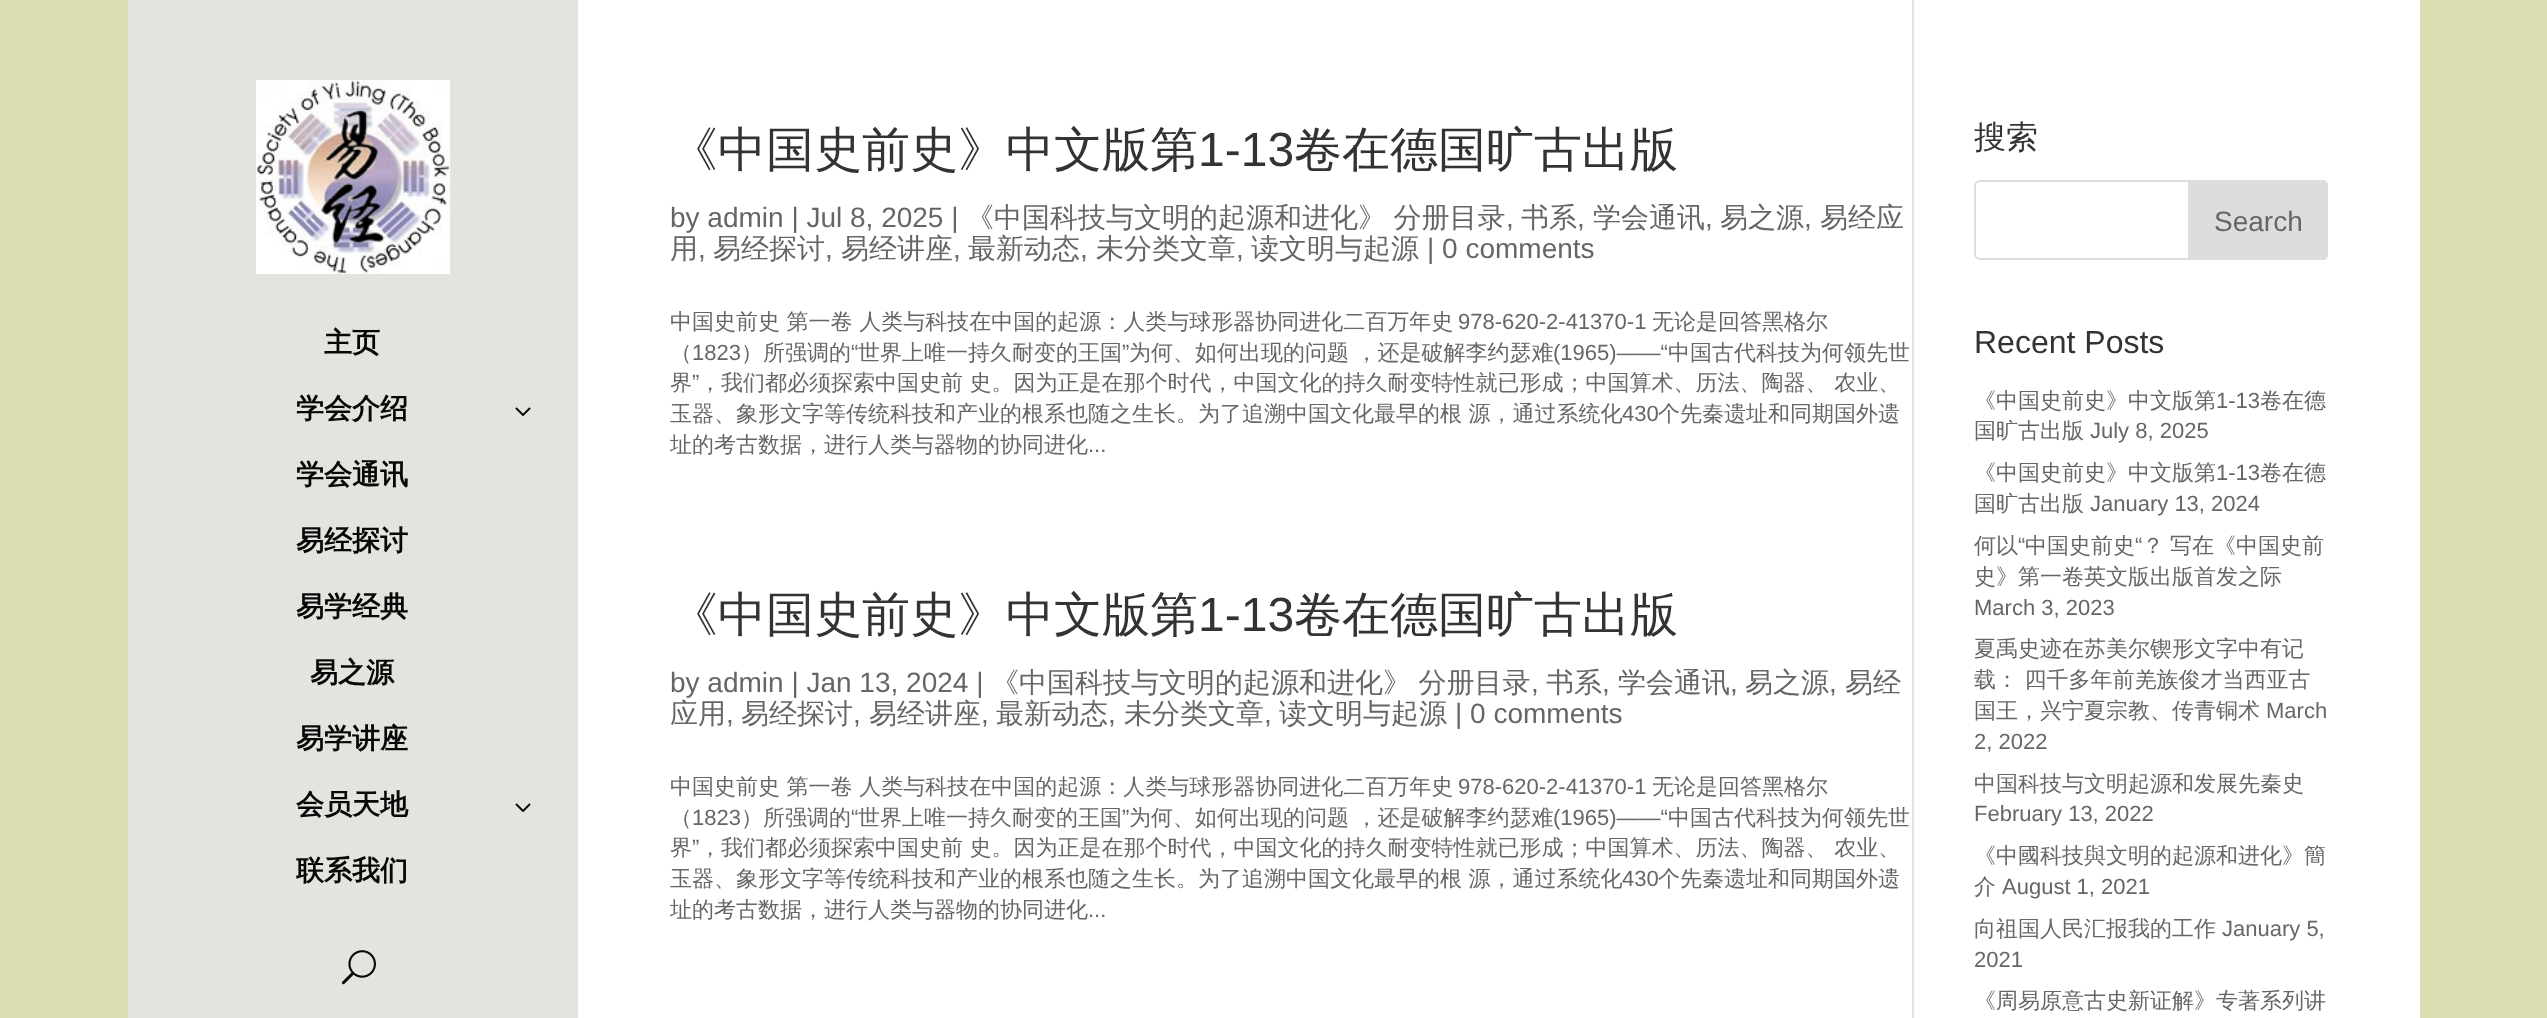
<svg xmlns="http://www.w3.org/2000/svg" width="2547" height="1018">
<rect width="100%" height="100%" fill="#ddddb3"/>
<rect x="128" width="450" height="1018" fill="#e4e4df"/>
<image x="256" y="80" width="194" height="194" href="media/1.png"/>
<text x="324" y="352" style="font-family:WenQuanYi Zen Hei;font-size:28px;font-weight:bold;fill:#070707">主页</text>
<text x="296" y="418" style="font-family:WenQuanYi Zen Hei;font-size:28px;font-weight:bold;fill:#070707">学会介绍</text>
<image x="515" y="407" width="16" height="9" href="media/2.png"/>
<text x="296" y="484" style="font-family:WenQuanYi Zen Hei;font-size:28px;font-weight:bold;fill:#070707">学会通讯</text>
<text x="296" y="550" style="font-family:WenQuanYi Zen Hei;font-size:28px;font-weight:bold;fill:#070707">易经探讨</text>
<text x="296" y="616" style="font-family:WenQuanYi Zen Hei;font-size:28px;font-weight:bold;fill:#070707">易学经典</text>
<text x="310" y="682" style="font-family:WenQuanYi Zen Hei;font-size:28px;font-weight:bold;fill:#070707">易之源</text>
<text x="296" y="748" style="font-family:WenQuanYi Zen Hei;font-size:28px;font-weight:bold;fill:#070707">易学讲座</text>
<text x="296" y="814" style="font-family:WenQuanYi Zen Hei;font-size:28px;font-weight:bold;fill:#070707">会员天地</text>
<image x="515" y="803" width="16" height="9" href="media/2.png"/>
<text x="296" y="880" style="font-family:WenQuanYi Zen Hei;font-size:28px;font-weight:bold;fill:#070707">联系我们</text>
<image x="341" y="950" width="35" height="35" href="media/3.png"/>
<rect x="578" width="1842" height="1018" fill="#fff"/>
<rect x="1912" width="2" height="1018" fill="#e2e2e2"/>
<text x="670" y="166" style="font-family:WenQuanYi Zen Hei;font-size:48px;font-weight:500;fill:#333">《中国史前史》中文版第</text>
<text x="1198" y="166" style="font-family:Liberation Sans;font-size:48px;fill:#333">1-13</text>
<text x="1294" y="166" style="font-family:WenQuanYi Zen Hei;font-size:48px;font-weight:500;fill:#333">卷在德国旷古出版</text>
<text x="670" y="227" style="font-family:Liberation Sans;font-size:28px;fill:#666">by admin | Jul 8, 2025 |</text>
<text x="966" y="227" word-spacing="-1" style="font-family:WenQuanYi Zen Hei;font-size:28px;font-weight:500;fill:#666">《中国科技与文明的起源和进化》 分册目录</text>
<text x="1506" y="227" style="font-family:Liberation Sans;font-size:28px;fill:#666">,</text>
<text x="1521" y="227" style="font-family:WenQuanYi Zen Hei;font-size:28px;font-weight:500;fill:#666">书系</text>
<text x="1577" y="227" style="font-family:Liberation Sans;font-size:28px;fill:#666">,</text>
<text x="1593" y="227" style="font-family:WenQuanYi Zen Hei;font-size:28px;font-weight:500;fill:#666">学会通讯</text>
<text x="1705" y="227" style="font-family:Liberation Sans;font-size:28px;fill:#666">,</text>
<text x="1720" y="227" style="font-family:WenQuanYi Zen Hei;font-size:28px;font-weight:500;fill:#666">易之源</text>
<text x="1804" y="227" style="font-family:Liberation Sans;font-size:28px;fill:#666">,</text>
<text x="1820" y="227" style="font-family:WenQuanYi Zen Hei;font-size:28px;font-weight:500;fill:#666">易经应</text>
<text x="670" y="258" style="font-family:WenQuanYi Zen Hei;font-size:28px;font-weight:500;fill:#666">用</text>
<text x="698" y="258" style="font-family:Liberation Sans;font-size:28px;fill:#666">,</text>
<text x="713" y="258" style="font-family:WenQuanYi Zen Hei;font-size:28px;font-weight:500;fill:#666">易经探讨</text>
<text x="825" y="258" style="font-family:Liberation Sans;font-size:28px;fill:#666">,</text>
<text x="841" y="258" style="font-family:WenQuanYi Zen Hei;font-size:28px;font-weight:500;fill:#666">易经讲座</text>
<text x="953" y="258" style="font-family:Liberation Sans;font-size:28px;fill:#666">,</text>
<text x="968" y="258" style="font-family:WenQuanYi Zen Hei;font-size:28px;font-weight:500;fill:#666">最新动态</text>
<text x="1080" y="258" style="font-family:Liberation Sans;font-size:28px;fill:#666">,</text>
<text x="1096" y="258" style="font-family:WenQuanYi Zen Hei;font-size:28px;font-weight:500;fill:#666">未分类文章</text>
<text x="1236" y="258" style="font-family:Liberation Sans;font-size:28px;fill:#666">,</text>
<text x="1251" y="258" style="font-family:WenQuanYi Zen Hei;font-size:28px;font-weight:500;fill:#666">读文明与起源</text>
<text x="1427" y="258" style="font-family:Liberation Sans;font-size:28px;fill:#666">| 0 comments</text>
<text x="670" y="329" style="font-family:WenQuanYi Zen Hei;font-size:22px;font-weight:500;fill:#666">中国史前史 第一卷 人类与科技在中国的起源：人类与球形器协同进化二百万年史</text>
<text x="1458" y="329" style="font-family:Liberation Sans;font-size:22px;fill:#666">978-620-2-41370-1</text>
<text x="1652" y="329" style="font-family:WenQuanYi Zen Hei;font-size:22px;font-weight:500;fill:#666">无论是回答黑格尔</text>
<text x="670" y="360" style="font-family:WenQuanYi Zen Hei;font-size:22px;font-weight:500;fill:#666">（</text>
<text x="692" y="360" style="font-family:Liberation Sans;font-size:22px;fill:#666">1823</text>
<text x="741" y="360" style="font-family:WenQuanYi Zen Hei;font-size:22px;font-weight:500;fill:#666">）所强调的</text>
<text x="851" y="360" style="font-family:Liberation Sans;font-size:22px;fill:#666">“</text>
<text x="858" y="360" style="font-family:WenQuanYi Zen Hei;font-size:22px;font-weight:500;fill:#666">世界上唯一持久耐变的王国</text>
<text x="1122" y="360" style="font-family:Liberation Sans;font-size:22px;fill:#666">”</text>
<text x="1129" y="360" style="font-family:WenQuanYi Zen Hei;font-size:22px;font-weight:500;fill:#666">为何、如何出现的问题 ，还是破解李约瑟难</text>
<text x="1553" y="360" style="font-family:Liberation Sans;font-size:22px;fill:#666">(1965)——“</text>
<text x="1668" y="360" style="font-family:WenQuanYi Zen Hei;font-size:22px;font-weight:500;fill:#666">中国古代科技为何领先世</text>
<text x="670" y="390" style="font-family:WenQuanYi Zen Hei;font-size:22px;font-weight:500;fill:#666">界</text>
<text x="692" y="390" style="font-family:Liberation Sans;font-size:22px;fill:#666">”</text>
<text x="699" y="390" style="font-family:WenQuanYi Zen Hei;font-size:22px;font-weight:500;fill:#666">，我们都必须探索中国史前 史。因为正是在那个时代，中国文化的持久耐变特性就已形成；中国算术、历法、陶器、 农业、</text>
<text x="670" y="421" style="font-family:WenQuanYi Zen Hei;font-size:22px;font-weight:500;fill:#666">玉器、象形文字等传统科技和产业的根系也随之生长。为了追溯中国文化最早的根 源，通过系统化</text>
<text x="1622" y="421" style="font-family:Liberation Sans;font-size:22px;fill:#666">430</text>
<text x="1658" y="421" style="font-family:WenQuanYi Zen Hei;font-size:22px;font-weight:500;fill:#666">个先秦遗址和同期国外遗</text>
<text x="670" y="452" style="font-family:WenQuanYi Zen Hei;font-size:22px;font-weight:500;fill:#666">址的考古数据，进行人类与器物的协同进化</text>
<text x="1088" y="452" style="font-family:Liberation Sans;font-size:22px;fill:#666">...</text>
<text x="670" y="631" style="font-family:WenQuanYi Zen Hei;font-size:48px;font-weight:500;fill:#333">《中国史前史》中文版第</text>
<text x="1198" y="631" style="font-family:Liberation Sans;font-size:48px;fill:#333">1-13</text>
<text x="1294" y="631" style="font-family:WenQuanYi Zen Hei;font-size:48px;font-weight:500;fill:#333">卷在德国旷古出版</text>
<text x="670" y="692" style="font-family:Liberation Sans;font-size:28px;fill:#666">by admin | Jan 13, 2024 |</text>
<text x="991" y="692" word-spacing="-1" style="font-family:WenQuanYi Zen Hei;font-size:28px;font-weight:500;fill:#666">《中国科技与文明的起源和进化》 分册目录</text>
<text x="1531" y="692" style="font-family:Liberation Sans;font-size:28px;fill:#666">,</text>
<text x="1546" y="692" style="font-family:WenQuanYi Zen Hei;font-size:28px;font-weight:500;fill:#666">书系</text>
<text x="1602" y="692" style="font-family:Liberation Sans;font-size:28px;fill:#666">,</text>
<text x="1618" y="692" style="font-family:WenQuanYi Zen Hei;font-size:28px;font-weight:500;fill:#666">学会通讯</text>
<text x="1730" y="692" style="font-family:Liberation Sans;font-size:28px;fill:#666">,</text>
<text x="1745" y="692" style="font-family:WenQuanYi Zen Hei;font-size:28px;font-weight:500;fill:#666">易之源</text>
<text x="1829" y="692" style="font-family:Liberation Sans;font-size:28px;fill:#666">,</text>
<text x="1845" y="692" style="font-family:WenQuanYi Zen Hei;font-size:28px;font-weight:500;fill:#666">易经</text>
<text x="670" y="723" style="font-family:WenQuanYi Zen Hei;font-size:28px;font-weight:500;fill:#666">应用</text>
<text x="726" y="723" style="font-family:Liberation Sans;font-size:28px;fill:#666">,</text>
<text x="741" y="723" style="font-family:WenQuanYi Zen Hei;font-size:28px;font-weight:500;fill:#666">易经探讨</text>
<text x="853" y="723" style="font-family:Liberation Sans;font-size:28px;fill:#666">,</text>
<text x="869" y="723" style="font-family:WenQuanYi Zen Hei;font-size:28px;font-weight:500;fill:#666">易经讲座</text>
<text x="981" y="723" style="font-family:Liberation Sans;font-size:28px;fill:#666">,</text>
<text x="996" y="723" style="font-family:WenQuanYi Zen Hei;font-size:28px;font-weight:500;fill:#666">最新动态</text>
<text x="1108" y="723" style="font-family:Liberation Sans;font-size:28px;fill:#666">,</text>
<text x="1124" y="723" style="font-family:WenQuanYi Zen Hei;font-size:28px;font-weight:500;fill:#666">未分类文章</text>
<text x="1264" y="723" style="font-family:Liberation Sans;font-size:28px;fill:#666">,</text>
<text x="1279" y="723" style="font-family:WenQuanYi Zen Hei;font-size:28px;font-weight:500;fill:#666">读文明与起源</text>
<text x="1455" y="723" style="font-family:Liberation Sans;font-size:28px;fill:#666">| 0 comments</text>
<text x="670" y="794" style="font-family:WenQuanYi Zen Hei;font-size:22px;font-weight:500;fill:#666">中国史前史 第一卷 人类与科技在中国的起源：人类与球形器协同进化二百万年史</text>
<text x="1458" y="794" style="font-family:Liberation Sans;font-size:22px;fill:#666">978-620-2-41370-1</text>
<text x="1652" y="794" style="font-family:WenQuanYi Zen Hei;font-size:22px;font-weight:500;fill:#666">无论是回答黑格尔</text>
<text x="670" y="825" style="font-family:WenQuanYi Zen Hei;font-size:22px;font-weight:500;fill:#666">（</text>
<text x="692" y="825" style="font-family:Liberation Sans;font-size:22px;fill:#666">1823</text>
<text x="741" y="825" style="font-family:WenQuanYi Zen Hei;font-size:22px;font-weight:500;fill:#666">）所强调的</text>
<text x="851" y="825" style="font-family:Liberation Sans;font-size:22px;fill:#666">“</text>
<text x="858" y="825" style="font-family:WenQuanYi Zen Hei;font-size:22px;font-weight:500;fill:#666">世界上唯一持久耐变的王国</text>
<text x="1122" y="825" style="font-family:Liberation Sans;font-size:22px;fill:#666">”</text>
<text x="1129" y="825" style="font-family:WenQuanYi Zen Hei;font-size:22px;font-weight:500;fill:#666">为何、如何出现的问题 ，还是破解李约瑟难</text>
<text x="1553" y="825" style="font-family:Liberation Sans;font-size:22px;fill:#666">(1965)——“</text>
<text x="1668" y="825" style="font-family:WenQuanYi Zen Hei;font-size:22px;font-weight:500;fill:#666">中国古代科技为何领先世</text>
<text x="670" y="855" style="font-family:WenQuanYi Zen Hei;font-size:22px;font-weight:500;fill:#666">界</text>
<text x="692" y="855" style="font-family:Liberation Sans;font-size:22px;fill:#666">”</text>
<text x="699" y="855" style="font-family:WenQuanYi Zen Hei;font-size:22px;font-weight:500;fill:#666">，我们都必须探索中国史前 史。因为正是在那个时代，中国文化的持久耐变特性就已形成；中国算术、历法、陶器、 农业、</text>
<text x="670" y="886" style="font-family:WenQuanYi Zen Hei;font-size:22px;font-weight:500;fill:#666">玉器、象形文字等传统科技和产业的根系也随之生长。为了追溯中国文化最早的根 源，通过系统化</text>
<text x="1622" y="886" style="font-family:Liberation Sans;font-size:22px;fill:#666">430</text>
<text x="1658" y="886" style="font-family:WenQuanYi Zen Hei;font-size:22px;font-weight:500;fill:#666">个先秦遗址和同期国外遗</text>
<text x="670" y="917" style="font-family:WenQuanYi Zen Hei;font-size:22px;font-weight:500;fill:#666">址的考古数据，进行人类与器物的协同进化</text>
<text x="1088" y="917" style="font-family:Liberation Sans;font-size:22px;fill:#666">...</text>
<text x="1974" y="148" style="font-family:WenQuanYi Zen Hei;font-size:32px;font-weight:500;fill:#333">搜索</text>
<rect x="1975" y="181" width="352" height="78" rx="5" fill="none" stroke="#ddd" stroke-width="2"/>
<path d="M2189 181h133c3 0 5 2 5 5v68c0 3-2 5-5 5h-133z" fill="#ddd" stroke="#ddd" stroke-width="2"/>
<text x="2214" y="231" style="font-family:Liberation Sans;font-size:28px;fill:#666">Search</text>
<text x="1974" y="353" style="font-family:Liberation Sans;font-size:32px;fill:#333">Recent Posts</text>
<text x="1974" y="408" style="font-family:WenQuanYi Zen Hei;font-size:22px;font-weight:500;fill:#666">《中国史前史》中文版第</text>
<text x="2216" y="408" style="font-family:Liberation Sans;font-size:22px;fill:#666">1-13</text>
<text x="2260" y="408" style="font-family:WenQuanYi Zen Hei;font-size:22px;font-weight:500;fill:#666">卷在德</text>
<text x="1974" y="438" style="font-family:WenQuanYi Zen Hei;font-size:22px;font-weight:500;fill:#666">国旷古出版</text>
<text x="2090" y="438" style="font-family:Liberation Sans;font-size:22px;fill:#666">July 8, 2025</text>
<text x="1974" y="480" style="font-family:WenQuanYi Zen Hei;font-size:22px;font-weight:500;fill:#666">《中国史前史》中文版第</text>
<text x="2216" y="480" style="font-family:Liberation Sans;font-size:22px;fill:#666">1-13</text>
<text x="2260" y="480" style="font-family:WenQuanYi Zen Hei;font-size:22px;font-weight:500;fill:#666">卷在德</text>
<text x="1974" y="511" style="font-family:WenQuanYi Zen Hei;font-size:22px;font-weight:500;fill:#666">国旷古出版</text>
<text x="2090" y="511" style="font-family:Liberation Sans;font-size:22px;fill:#666">January 13, 2024</text>
<text x="1974" y="553" style="font-family:WenQuanYi Zen Hei;font-size:22px;font-weight:500;fill:#666">何以</text>
<text x="2018" y="553" style="font-family:Liberation Sans;font-size:22px;fill:#666">“</text>
<text x="2025" y="553" style="font-family:WenQuanYi Zen Hei;font-size:22px;font-weight:500;fill:#666">中国史前史</text>
<text x="2135" y="553" style="font-family:Liberation Sans;font-size:22px;fill:#666">“</text>
<text x="2142" y="553" style="font-family:WenQuanYi Zen Hei;font-size:22px;font-weight:500;fill:#666">？</text>
<text x="2170" y="553" style="font-family:WenQuanYi Zen Hei;font-size:22px;font-weight:500;fill:#666">写在《中国史前</text>
<text x="1974" y="584" style="font-family:WenQuanYi Zen Hei;font-size:22px;font-weight:500;fill:#666">史》第一卷英文版出版首发之际</text>
<text x="1974" y="615" style="font-family:Liberation Sans;font-size:22px;fill:#666">March 3, 2023</text>
<text x="1974" y="656" style="font-family:WenQuanYi Zen Hei;font-size:22px;font-weight:500;fill:#666">夏禹史迹在苏美尔锲形文字中有记</text>
<text x="1974" y="687" style="font-family:WenQuanYi Zen Hei;font-size:22px;font-weight:500;fill:#666">载： 四千多年前羌族俊才当西亚古</text>
<text x="1974" y="718" style="font-family:WenQuanYi Zen Hei;font-size:22px;font-weight:500;fill:#666">国王，兴宁夏宗教、传青铜术</text>
<text x="2266" y="718" style="font-family:Liberation Sans;font-size:22px;fill:#666">March</text>
<text x="1974" y="749" style="font-family:Liberation Sans;font-size:22px;fill:#666">2, 2022</text>
<text x="1974" y="791" style="font-family:WenQuanYi Zen Hei;font-size:22px;font-weight:500;fill:#666">中国科技与文明起源和发展先秦史</text>
<text x="1974" y="821" style="font-family:Liberation Sans;font-size:22px;fill:#666">February 13, 2022</text>
<text x="1974" y="863" style="font-family:WenQuanYi Zen Hei;font-size:22px;font-weight:500;fill:#666">《中國科技與文明的起源和进化》簡</text>
<text x="1974" y="894" style="font-family:WenQuanYi Zen Hei;font-size:22px;font-weight:500;fill:#666">介</text>
<text x="2002" y="894" style="font-family:Liberation Sans;font-size:22px;fill:#666">August 1, 2021</text>
<text x="1974" y="936" style="font-family:WenQuanYi Zen Hei;font-size:22px;font-weight:500;fill:#666">向祖国人民汇报我的工作</text>
<text x="2222" y="936" style="font-family:Liberation Sans;font-size:22px;fill:#666">January 5,</text>
<text x="1974" y="967" style="font-family:Liberation Sans;font-size:22px;fill:#666">2021</text>
<text x="1974" y="1008" style="font-family:WenQuanYi Zen Hei;font-size:22px;font-weight:500;fill:#666">《周易原意古史新证解》专著系列讲</text>
</svg>
